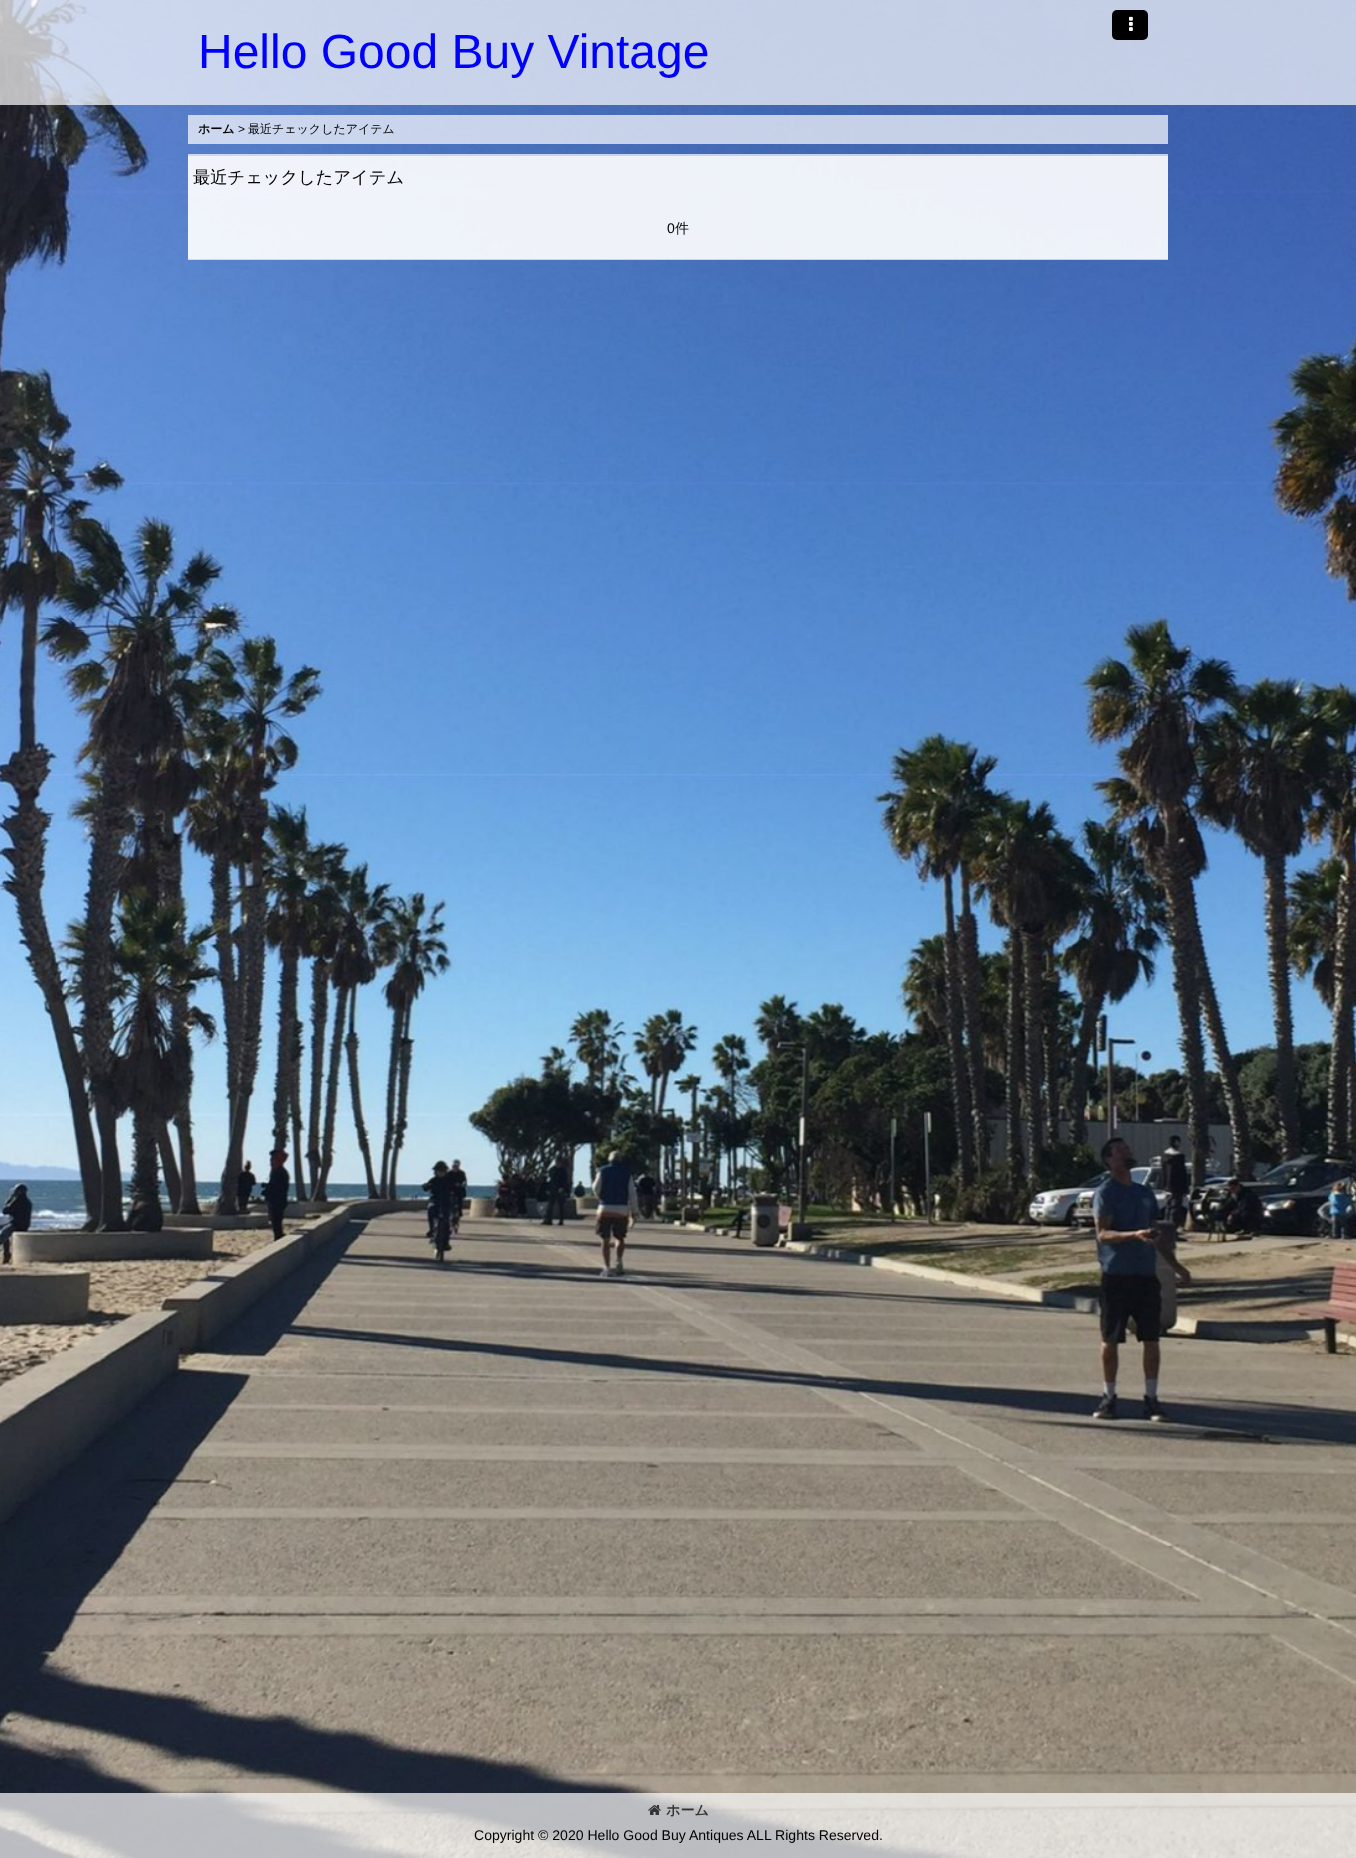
<svg xmlns="http://www.w3.org/2000/svg" width="1356" height="1858">
<rect width="100%" height="100%" fill="#fff"/>
<image x="0" y="0" width="1356" height="1858" href="media/1.png"/>
<rect width="1356" height="105" fill="#ffffffb3"/>
<rect x="1112" y="10" width="36" height="30" rx="5" fill="#000"/>
<image x="1129" y="16" width="4" height="15" href="media/2.png"/>
<text x="198" y="68" style="font-family:Liberation Sans;font-size:48px;fill:#00f">Hello Good Buy Vintage</text>
<rect x="188" y="115" width="980" height="29" fill="#ffffffb3"/>
<text x="198" y="133" style="font-family:WenQuanYi Zen Hei;font-size:12px;font-weight:bold;fill:#000">ホーム</text>
<text x="238" y="133" style="font-family:Liberation Sans;font-size:12px;fill:#000">&gt;</text>
<text x="248" y="133" style="font-family:WenQuanYi Zen Hei;font-size:12px;font-weight:500;fill:#000">最近チェックしたアイテム</text>
<rect x="188" y="154" width="980" height="106" fill="#ffffffb3"/>
<rect x="188" y="156" width="980" height="103" fill="#ffffffb3"/>
<text x="193" y="183" style="font-family:WenQuanYi Zen Hei;font-size:17.25px;font-weight:500;fill:#000">最近チェックしたアイテム</text>
<text x="667" y="233" style="font-family:Liberation Sans;font-size:14.05px;fill:#000">0</text>
<text x="675" y="233" style="font-family:WenQuanYi Zen Hei;font-size:14.05px;font-weight:500;fill:#000">件</text>
<rect y="1793" width="1356" height="65" fill="#ffffffb3"/>
<image x="648" y="1805" width="13" height="10" href="media/3.png"/>
<text x="666" y="1815" style="font-family:WenQuanYi Zen Hei;font-size:14.05px;font-weight:bold;fill:#333">ホーム</text>
<text x="474" y="1840" style="font-family:Liberation Sans;font-size:14.05px;fill:#000">Copyright © 2020 Hello Good Buy Antiques ALL Rights Reserved.</text>
</svg>
